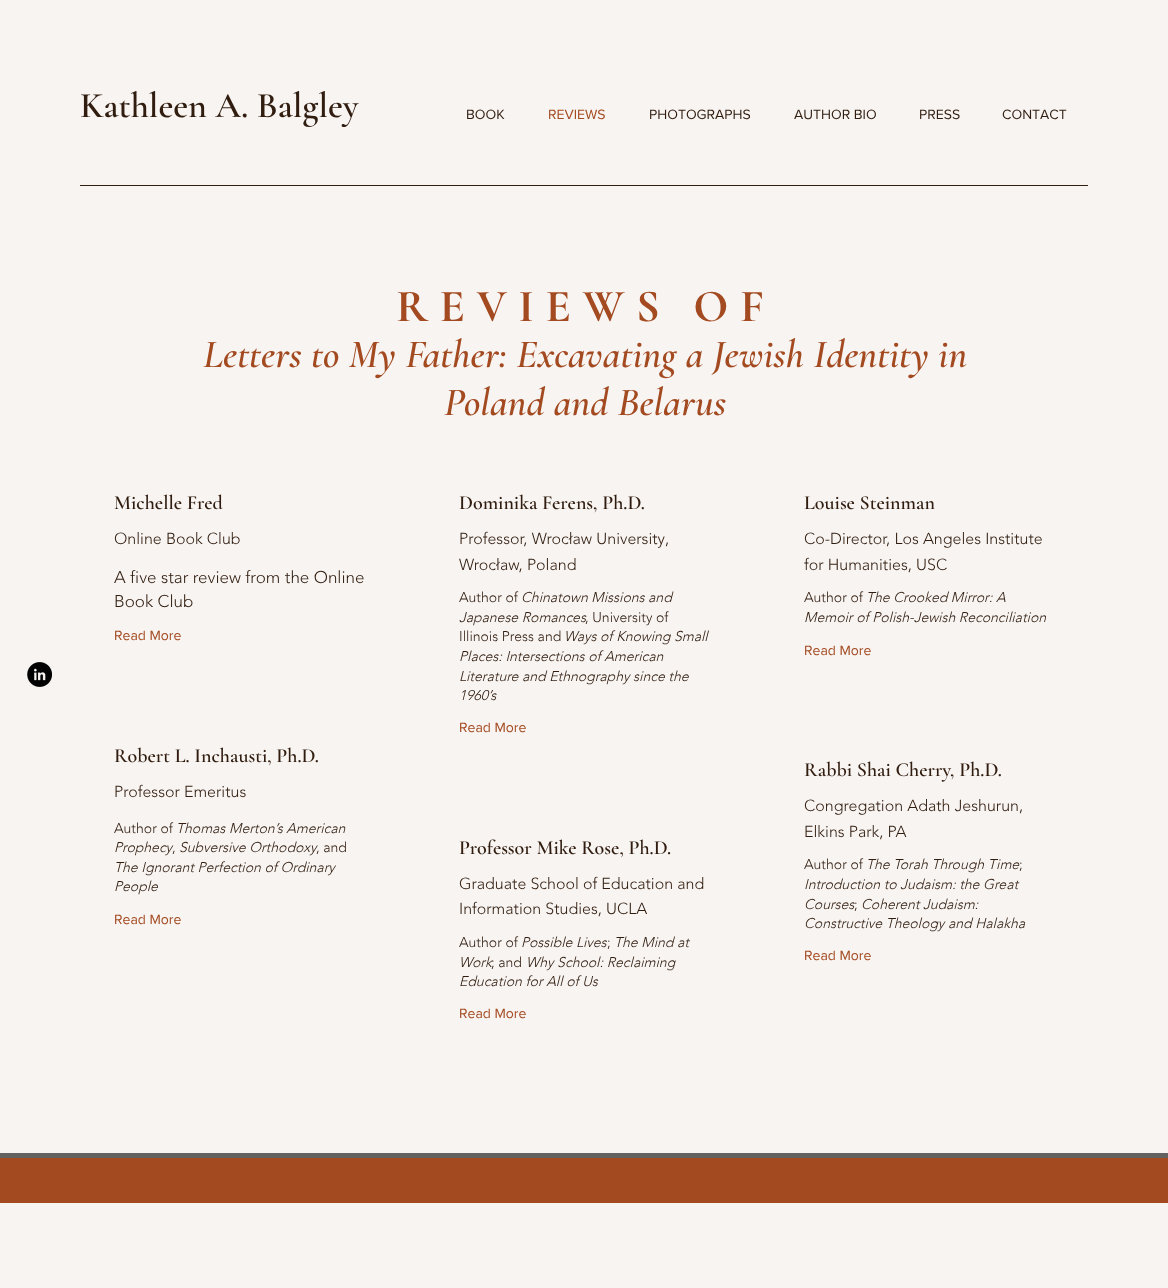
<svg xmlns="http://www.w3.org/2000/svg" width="1168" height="1288">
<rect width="100%" height="100%" fill="#f8f4f1"/>
<text x="80" y="117" style="font-family:Cormorant Garamond;font-size:36px;font-weight:600;fill:#301d10">Kathleen A. Balgley</text>
<text x="466" y="119" style="font-family:'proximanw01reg';font-size:14px;fill:#301d10">BOOK</text>
<text x="548" y="119" style="font-family:'proximanw01reg';font-size:14px;fill:#a34a21">REVIEWS</text>
<text x="649" y="119" style="font-family:'proximanw01reg';font-size:14px;fill:#301d10">PHOTOGRAPHS</text>
<text x="794" y="119" style="font-family:'proximanw01reg';font-size:14px;fill:#301d10">AUTHOR BIO</text>
<text x="919" y="119" style="font-family:'proximanw01reg';font-size:14px;fill:#301d10">PRESS</text>
<text x="1002" y="119" style="font-family:'proximanw01reg';font-size:14px;fill:#301d10">CONTACT</text>
<rect x="80" y="185" width="1008" height="1" fill="#301d10"/>
<image x="27" y="662" width="25" height="25" href="media/1.png"/>
<text x="396" y="321" style="font-family:Cormorant Garamond;font-size:46px;font-weight:bold;letter-spacing:11.5px;fill:#a34a21">REVIEWS OF</text>
<text x="203" y="367" style="font-family:Cormorant Garamond;font-size:40px;font-weight:600;font-style:italic;fill:#a34a21">Letters to My Father: Excavating a Jewish Identity in</text>
<text x="444" y="415" style="font-family:Cormorant Garamond;font-size:40px;font-weight:600;font-style:italic;fill:#a34a21">Poland and Belarus</text>
<text x="114" y="509" style="font-family:Cormorant Garamond;font-size:20px;font-weight:600;fill:#301d10">Michelle Fred</text>
<text x="114" y="544" style="font-family:'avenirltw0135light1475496';font-size:16px;font-weight:300;fill:#301d10">Online Book Club</text>
<text x="114" y="583" style="font-family:'avenirltw0135light1475496';font-size:17px;font-weight:300;fill:#301d10">A five star review from the Online</text>
<text x="114" y="607" style="font-family:'avenirltw0135light1475496';font-size:17px;font-weight:300;fill:#301d10">Book Club</text>
<text x="114" y="640" style="font-family:'proximanw01reg';font-size:14px;fill:#a34a21">Read More</text>
<text x="114" y="762" style="font-family:Cormorant Garamond;font-size:20px;font-weight:600;fill:#301d10">Robert L. Inchausti, Ph.D.</text>
<text x="114" y="797" style="font-family:'avenirltw0135light1475496';font-size:16px;font-weight:300;fill:#301d10">Professor Emeritus</text>
<text x="114" y="833" style="font-family:'avenirltw0135light1475496';font-size:14px;font-weight:300;fill:#301d10">Author of</text>
<text x="176" y="833" style="font-family:'avenirltw0135light1475496';font-size:14px;font-weight:300;font-style:italic;fill:#301d10">Thomas Merton’s American</text>
<text x="114" y="852" style="font-family:'avenirltw0135light1475496';font-size:14px;font-weight:300;font-style:italic;fill:#301d10">Prophecy</text>
<text x="172" y="852" style="font-family:'avenirltw0135light1475496';font-size:14px;font-weight:300;fill:#301d10">,</text>
<text x="179" y="852" style="font-family:'avenirltw0135light1475496';font-size:14px;font-weight:300;font-style:italic;fill:#301d10">Subversive Orthodoxy</text>
<text x="316" y="852" style="font-family:'avenirltw0135light1475496';font-size:14px;font-weight:300;fill:#301d10">, and</text>
<text x="114" y="872" style="font-family:'avenirltw0135light1475496';font-size:14px;font-weight:300;font-style:italic;fill:#301d10">The Ignorant Perfection of Ordinary</text>
<text x="114" y="891" style="font-family:'avenirltw0135light1475496';font-size:14px;font-weight:300;font-style:italic;fill:#301d10">People</text>
<text x="114" y="924" style="font-family:'proximanw01reg';font-size:14px;fill:#a34a21">Read More</text>
<text x="459" y="509" style="font-family:Cormorant Garamond;font-size:20px;font-weight:600;fill:#301d10">Dominika Ferens, Ph.D.</text>
<text x="459" y="544" style="font-family:'avenirltw0135light1475496';font-size:16px;font-weight:300;fill:#301d10">Professor, Wrocław University,</text>
<text x="459" y="570" style="font-family:'avenirltw0135light1475496';font-size:16px;font-weight:300;fill:#301d10">Wrocław, Poland</text>
<text x="459" y="602" style="font-family:'avenirltw0135light1475496';font-size:14px;font-weight:300;fill:#301d10">Author of</text>
<text x="521" y="602" style="font-family:'avenirltw0135light1475496';font-size:14px;font-weight:300;font-style:italic;fill:#301d10">Chinatown Missions and</text>
<text x="459" y="622" style="font-family:'avenirltw0135light1475496';font-size:14px;font-weight:300;font-style:italic;fill:#301d10">Japanese Romances</text>
<text x="585" y="622" style="font-family:'avenirltw0135light1475496';font-size:14px;font-weight:300;fill:#301d10">, University of</text>
<text x="459" y="641" style="font-family:'avenirltw0135light1475496';font-size:14px;font-weight:300;fill:#301d10">Illinois Press and</text>
<text x="564" y="641" style="font-family:'avenirltw0135light1475496';font-size:14px;font-weight:300;font-style:italic;fill:#301d10">Ways of Knowing Small</text>
<text x="459" y="661" style="font-family:'avenirltw0135light1475496';font-size:14px;font-weight:300;font-style:italic;fill:#301d10">Places: Intersections of American</text>
<text x="459" y="681" style="font-family:'avenirltw0135light1475496';font-size:14px;font-weight:300;font-style:italic;fill:#301d10">Literature and Ethnography since the</text>
<text x="459" y="700" style="font-family:'avenirltw0135light1475496';font-size:14px;font-weight:300;font-style:italic;fill:#301d10">1960’s</text>
<text x="459" y="732" style="font-family:'proximanw01reg';font-size:14px;fill:#a34a21">Read More</text>
<text x="459" y="854" style="font-family:Cormorant Garamond;font-size:20px;font-weight:600;fill:#301d10">Professor Mike Rose, Ph.D.</text>
<text x="459" y="889" style="font-family:'avenirltw0135light1475496';font-size:16px;font-weight:300;fill:#301d10">Graduate School of Education and</text>
<text x="459" y="914" style="font-family:'avenirltw0135light1475496';font-size:16px;font-weight:300;fill:#301d10">Information Studies, UCLA</text>
<text x="459" y="947" style="font-family:'avenirltw0135light1475496';font-size:14px;font-weight:300;fill:#301d10">Author of</text>
<text x="521" y="947" style="font-family:'avenirltw0135light1475496';font-size:14px;font-weight:300;font-style:italic;fill:#301d10">Possible Lives</text>
<text x="607" y="947" style="font-family:'avenirltw0135light1475496';font-size:14px;font-weight:300;fill:#301d10">;</text>
<text x="614" y="947" style="font-family:'avenirltw0135light1475496';font-size:14px;font-weight:300;font-style:italic;fill:#301d10">The Mind at</text>
<text x="459" y="967" style="font-family:'avenirltw0135light1475496';font-size:14px;font-weight:300;font-style:italic;fill:#301d10">Work</text>
<text x="491" y="967" style="font-family:'avenirltw0135light1475496';font-size:14px;font-weight:300;fill:#301d10">; and</text>
<text x="526" y="967" style="font-family:'avenirltw0135light1475496';font-size:14px;font-weight:300;font-style:italic;fill:#301d10">Why School: Reclaiming</text>
<text x="459" y="986" style="font-family:'avenirltw0135light1475496';font-size:14px;font-weight:300;font-style:italic;fill:#301d10">Education for All of Us</text>
<text x="459" y="1018" style="font-family:'proximanw01reg';font-size:14px;fill:#a34a21">Read More</text>
<text x="804" y="509" style="font-family:Cormorant Garamond;font-size:20px;font-weight:600;fill:#301d10">Louise Steinman</text>
<text x="804" y="544" style="font-family:'avenirltw0135light1475496';font-size:16px;font-weight:300;fill:#301d10">Co-Director, Los Angeles Institute</text>
<text x="804" y="570" style="font-family:'avenirltw0135light1475496';font-size:16px;font-weight:300;fill:#301d10">for Humanities, USC</text>
<text x="804" y="602" style="font-family:'avenirltw0135light1475496';font-size:14px;font-weight:300;fill:#301d10">Author of</text>
<text x="866" y="602" style="font-family:'avenirltw0135light1475496';font-size:14px;font-weight:300;font-style:italic;fill:#301d10">The Crooked Mirror: A</text>
<text x="804" y="622" style="font-family:'avenirltw0135light1475496';font-size:14px;font-weight:300;font-style:italic;fill:#301d10">Memoir of Polish-Jewish Reconciliation</text>
<text x="804" y="655" style="font-family:'proximanw01reg';font-size:14px;fill:#a34a21">Read More</text>
<text x="804" y="776" style="font-family:Cormorant Garamond;font-size:20px;font-weight:600;fill:#301d10">Rabbi Shai Cherry, Ph.D.</text>
<text x="804" y="811" style="font-family:'avenirltw0135light1475496';font-size:16px;font-weight:300;fill:#301d10">Congregation Adath Jeshurun,</text>
<text x="804" y="837" style="font-family:'avenirltw0135light1475496';font-size:16px;font-weight:300;fill:#301d10">Elkins Park, PA</text>
<text x="804" y="869" style="font-family:'avenirltw0135light1475496';font-size:14px;font-weight:300;fill:#301d10">Author of</text>
<text x="866" y="869" style="font-family:'avenirltw0135light1475496';font-size:14px;font-weight:300;font-style:italic;fill:#301d10">The Torah Through Time</text>
<text x="1019" y="869" style="font-family:'avenirltw0135light1475496';font-size:14px;font-weight:300;fill:#301d10">;</text>
<text x="804" y="889" style="font-family:'avenirltw0135light1475496';font-size:14px;font-weight:300;font-style:italic;fill:#301d10">Introduction to Judaism: the Great</text>
<text x="804" y="909" style="font-family:'avenirltw0135light1475496';font-size:14px;font-weight:300;font-style:italic;fill:#301d10">Courses</text>
<text x="854" y="909" style="font-family:'avenirltw0135light1475496';font-size:14px;font-weight:300;fill:#301d10">;</text>
<text x="861" y="909" style="font-family:'avenirltw0135light1475496';font-size:14px;font-weight:300;font-style:italic;fill:#301d10">Coherent Judaism:</text>
<text x="804" y="928" style="font-family:'avenirltw0135light1475496';font-size:14px;font-weight:300;font-style:italic;fill:#301d10">Constructive Theology and Halakha</text>
<text x="804" y="960" style="font-family:'proximanw01reg';font-size:14px;fill:#a34a21">Read More</text>
<rect y="1158" width="1168" height="45" fill="#a34a21"/>
<rect y="1153" width="1168" height="5" fill="#636260"/>
</svg>
